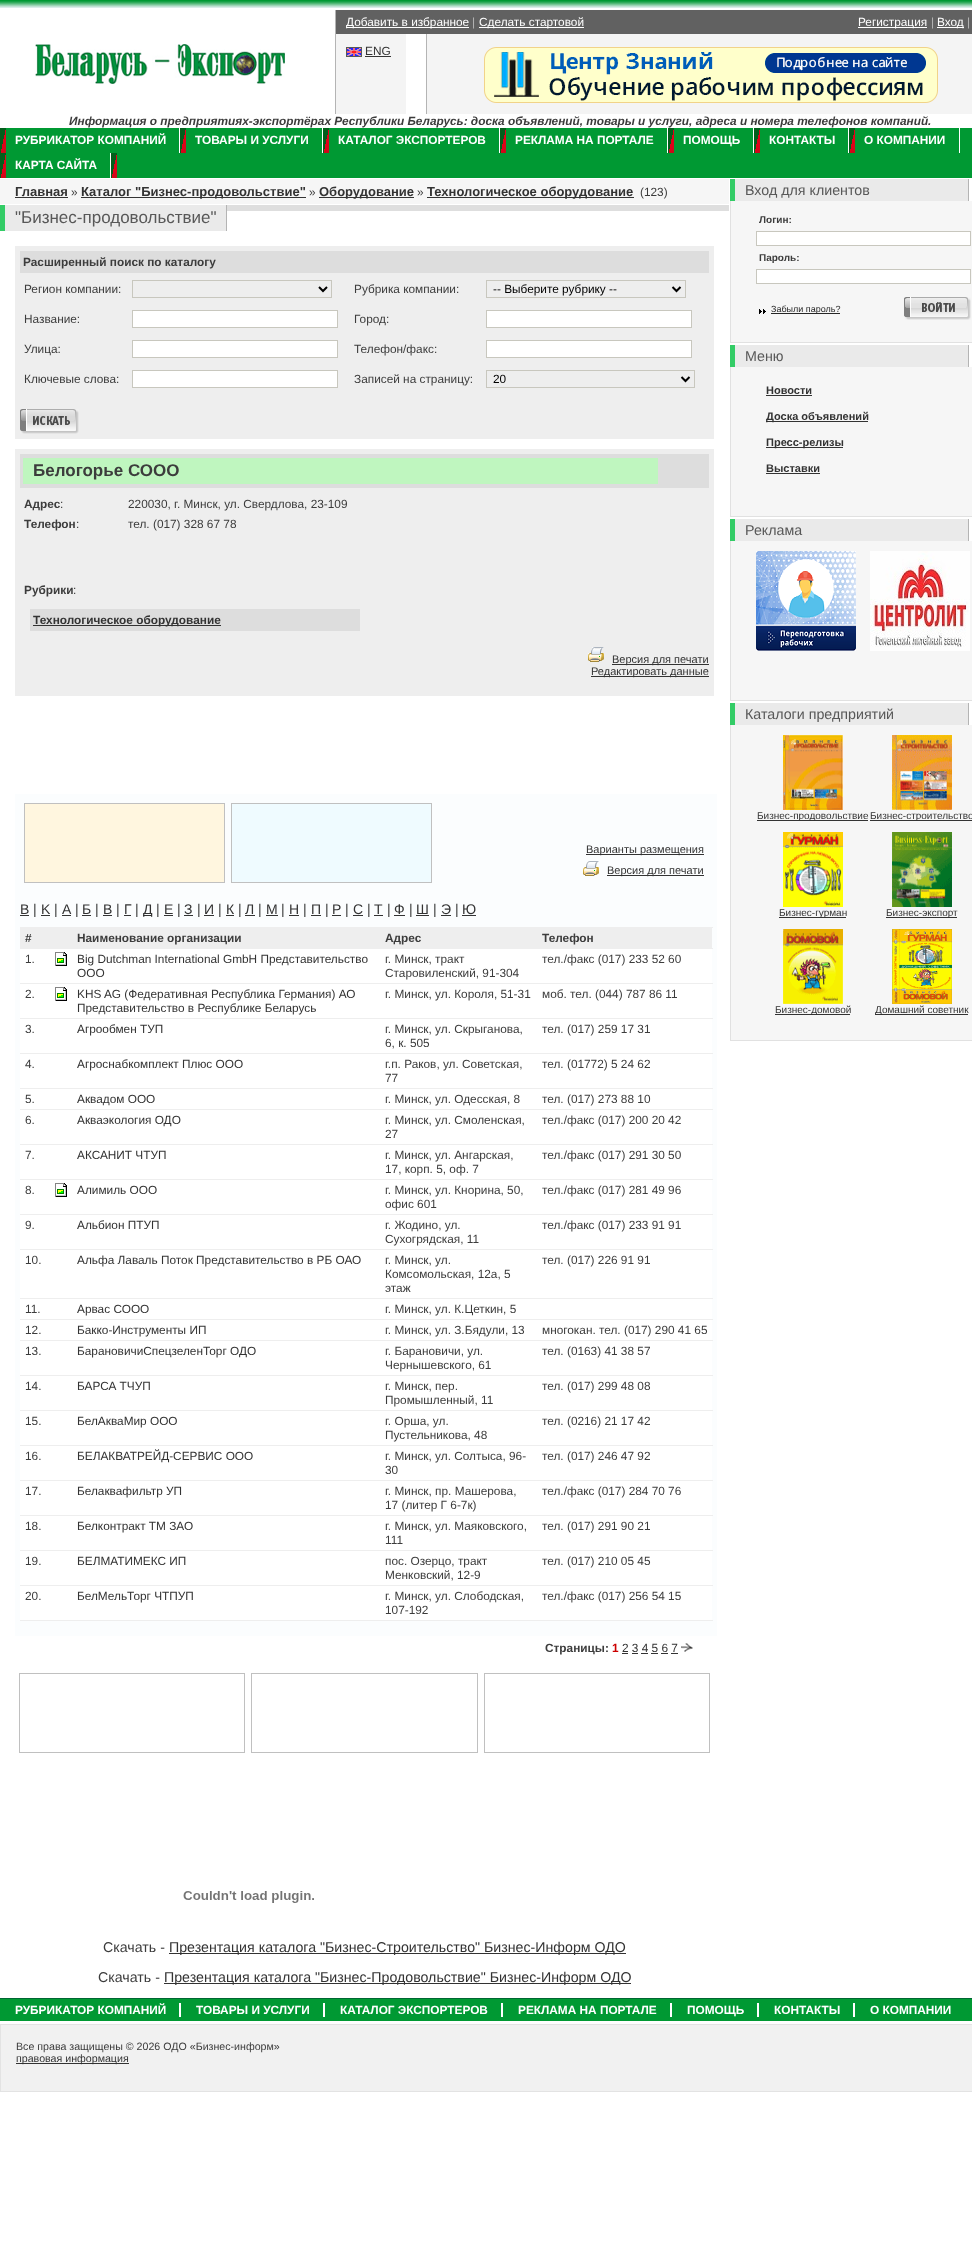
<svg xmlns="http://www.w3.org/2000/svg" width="972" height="2261">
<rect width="100%" height="100%" fill="#fff"/>
<image x="0" y="0" width="972" height="8" href="media/1.png"/>
<rect x="336" y="10" width="636" height="24" fill="#616161"/>
<rect x="335" y="10" width="1" height="104" fill="#b4b4b4"/>
<rect x="346" y="27" width="123" height="1" fill="#fff"/>
<text x="346" y="26" style="font-family:Liberation Sans;font-size:11.83px;fill:#fff">Добавить в избранное</text>
<text x="472" y="26" style="font-family:Liberation Sans;font-size:11.83px;fill:#b6b6b6">|</text>
<rect x="479" y="27" width="105" height="1" fill="#fff"/>
<text x="479" y="26" style="font-family:Liberation Sans;font-size:11.83px;fill:#fff">Сделать стартовой</text>
<rect x="858" y="27" width="69" height="1" fill="#fff"/>
<text x="858" y="26" style="font-family:Liberation Sans;font-size:11.83px;fill:#fff">Регистрация</text>
<text x="931" y="26" style="font-family:Liberation Sans;font-size:11.83px;fill:#b6b6b6">|</text>
<rect x="937" y="27" width="27" height="1" fill="#fff"/>
<text x="937" y="26" style="font-family:Liberation Sans;font-size:11.83px;fill:#fff">Вход</text>
<text x="967" y="26" style="font-family:Liberation Sans;font-size:11.83px;fill:#b6b6b6">|</text>
<image x="35" y="44" width="250" height="40" href="media/2.png"/>
<rect x="336" y="34" width="70" height="80" fill="#f4f4f4"/>
<image x="346" y="47" width="16" height="10" href="media/3.png"/>
<text x="365" y="55" style="font-family:Liberation Sans;font-size:11.83px;fill:#333">ENG</text>
<rect x="365" y="56" width="26" height="1" fill="#333"/>
<rect x="427" y="34" width="545" height="80" fill="#f4f4f4"/>
<rect x="426" y="34" width="1" height="80" fill="#b4b4b4"/>
<image x="484" y="47" width="454" height="56" href="media/4.png"/>
<text x="69" y="125" style="font-family:Liberation Sans;font-size:11.83px;font-weight:bold;font-style:italic;fill:#3c3c3c">Информация о предприятиях-экспортёрах Республики Беларусь: доска объявлений, товары и услуги, адреса и номера телефонов компаний.</text>
<rect x="6" y="128" width="966" height="50" fill="#093"/>
<image x="0" y="128" width="6" height="25" href="media/5.png"/>
<rect x="179" y="128" width="1" height="25" fill="#fff"/>
<text x="15" y="144" style="font-family:Liberation Sans;font-size:11.83px;font-weight:bold;fill:#fff">РУБРИКАТОР КОМПАНИЙ</text>
<image x="180" y="128" width="6" height="25" href="media/5.png"/>
<rect x="322" y="128" width="1" height="25" fill="#fff"/>
<text x="195" y="144" style="font-family:Liberation Sans;font-size:11.83px;font-weight:bold;fill:#fff">ТОВАРЫ И УСЛУГИ</text>
<image x="323" y="128" width="6" height="25" href="media/5.png"/>
<rect x="499" y="128" width="1" height="25" fill="#fff"/>
<text x="338" y="144" style="font-family:Liberation Sans;font-size:11.83px;font-weight:bold;fill:#fff">КАТАЛОГ ЭКСПОРТЕРОВ</text>
<image x="500" y="128" width="6" height="25" href="media/5.png"/>
<rect x="667" y="128" width="1" height="25" fill="#fff"/>
<text x="515" y="144" style="font-family:Liberation Sans;font-size:11.83px;font-weight:bold;fill:#fff">РЕКЛАМА НА ПОРТАЛЕ</text>
<image x="668" y="128" width="6" height="25" href="media/5.png"/>
<rect x="753" y="128" width="1" height="25" fill="#fff"/>
<text x="683" y="144" style="font-family:Liberation Sans;font-size:11.83px;font-weight:bold;fill:#fff">ПОМОЩЬ</text>
<image x="754" y="128" width="6" height="25" href="media/5.png"/>
<rect x="848" y="128" width="1" height="25" fill="#fff"/>
<text x="769" y="144" style="font-family:Liberation Sans;font-size:11.83px;font-weight:bold;fill:#fff">КОНТАКТЫ</text>
<image x="849" y="128" width="6" height="25" href="media/5.png"/>
<rect x="959" y="128" width="1" height="25" fill="#fff"/>
<text x="864" y="144" style="font-family:Liberation Sans;font-size:11.83px;font-weight:bold;fill:#fff">О КОМПАНИИ</text>
<image x="0" y="153" width="6" height="25" href="media/5.png"/>
<rect x="110" y="153" width="1" height="25" fill="#fff"/>
<text x="15" y="169" style="font-family:Liberation Sans;font-size:11.83px;font-weight:bold;fill:#fff">КАРТА САЙТА</text>
<image x="111" y="153" width="6" height="25" href="media/5.png"/>
<rect y="179" width="729" height="25" fill="#f6f6f6"/>
<text x="15" y="196" style="font-family:Liberation Sans;font-size:13px;font-weight:bold;fill:#333">Главная</text>
<rect x="15" y="197" width="53" height="1" fill="#333"/>
<text x="71" y="196" style="font-family:Liberation Sans;font-size:11.83px;fill:#3c3c3c">»</text>
<rect x="81" y="197" width="225" height="1" fill="#333"/>
<text x="81" y="196" style="font-family:Liberation Sans;font-size:13px;font-weight:bold;fill:#333">Каталог "Бизнес-продовольствие"</text>
<text x="309" y="196" style="font-family:Liberation Sans;font-size:11.83px;fill:#3c3c3c">»</text>
<rect x="319" y="197" width="95" height="1" fill="#333"/>
<text x="319" y="196" style="font-family:Liberation Sans;font-size:13px;font-weight:bold;fill:#333">Оборудование</text>
<text x="417" y="196" style="font-family:Liberation Sans;font-size:11.83px;fill:#3c3c3c">»</text>
<rect x="427" y="197" width="207" height="1" fill="#333"/>
<text x="427" y="196" style="font-family:Liberation Sans;font-size:13px;font-weight:bold;fill:#333">Технологическое оборудование</text>
<text x="640" y="196" style="font-family:Liberation Sans;font-size:11.83px;fill:#3c3c3c">(123)</text>
<rect x="227" y="205" width="502" height="6" fill="#dedede"/>
<rect x="5" y="205" width="221" height="26" fill="#eaeaea"/>
<rect x="226" y="205" width="1" height="26" fill="#b4b4b4"/>
<rect y="205" width="5" height="26" fill="#3c6"/>
<text x="15" y="223" style="font-family:Liberation Sans;font-size:17px;fill:#585858">"Бизнес-продовольствие"</text>
<rect x="15" y="246" width="699" height="193" fill="#eee"/>
<rect x="20" y="251" width="689" height="22" fill="#ddd"/>
<text x="23" y="266" style="font-family:Liberation Sans;font-size:11.83px;font-weight:bold;fill:#3c3c3c">Расширенный поиск по каталогу</text>
<text x="24" y="293" style="font-family:Liberation Sans;font-size:11.83px;fill:#3c3c3c">Регион компании:</text>
<rect x="132.5" y="280.5" width="199" height="17" fill="none" stroke="#c8c7be"/>
<path d="M319 287l4 4l4-4" fill="none" stroke="#000" stroke-width="2"/>
<text x="354" y="293" style="font-family:Liberation Sans;font-size:11.83px;fill:#3c3c3c">Рубрика компании:</text>
<rect x="486.5" y="280.5" width="199" height="17" fill="none" stroke="#c8c7be"/>
<path d="M672.5 287l4 4l4-4" fill="none" stroke="#000" stroke-width="2"/>
<text x="493" y="293" style="font-family:Liberation Sans;font-size:11.83px;fill:#000">-- Выберите рубрику --</text>
<text x="24" y="323" style="font-family:Liberation Sans;font-size:11.83px;fill:#3c3c3c">Название:</text>
<rect x="132.5" y="310.5" width="205" height="17" fill="#fff" stroke="#c8c7be"/>
<text x="354" y="323" style="font-family:Liberation Sans;font-size:11.83px;fill:#3c3c3c">Город:</text>
<rect x="486.5" y="310.5" width="205" height="17" fill="#fff" stroke="#c8c7be"/>
<text x="24" y="353" style="font-family:Liberation Sans;font-size:11.83px;fill:#3c3c3c">Улица:</text>
<rect x="132.5" y="340.5" width="205" height="17" fill="#fff" stroke="#c8c7be"/>
<text x="354" y="353" style="font-family:Liberation Sans;font-size:11.83px;fill:#3c3c3c">Телефон/факс:</text>
<rect x="486.5" y="340.5" width="205" height="17" fill="#fff" stroke="#c8c7be"/>
<text x="24" y="383" style="font-family:Liberation Sans;font-size:11.83px;fill:#3c3c3c">Ключевые слова:</text>
<rect x="132.5" y="370.5" width="205" height="17" fill="#fff" stroke="#c8c7be"/>
<text x="354" y="383" style="font-family:Liberation Sans;font-size:11.83px;fill:#3c3c3c">Записей на страницу:</text>
<rect x="486.5" y="370.5" width="208" height="17" fill="none" stroke="#c8c7be"/>
<path d="M681.5 377l4 4l4-4" fill="none" stroke="#000" stroke-width="2"/>
<text x="493" y="383" style="font-family:Liberation Sans;font-size:11.83px;fill:#000">20</text>
<image x="20" y="409" width="59" height="25" href="media/6.png"/>
<rect x="15" y="449" width="699" height="247" fill="#eee"/>
<rect x="20" y="454" width="689" height="34" fill="#ddd"/>
<rect x="23" y="458" width="635" height="26" fill="#bff6bf"/>
<text x="33" y="476" style="font-family:Liberation Sans;font-size:17px;font-weight:bold;fill:#3c3c3c">Белогорье СООО</text>
<text x="24" y="508" style="font-family:Liberation Sans;font-size:11.83px;font-weight:bold;fill:#3c3c3c">Адрес</text>
<text x="60" y="508" style="font-family:Liberation Sans;font-size:11.83px;fill:#3c3c3c">:</text>
<text x="128" y="508" style="font-family:Liberation Sans;font-size:11.83px;fill:#3c3c3c">220030, г. Минск, ул. Свердлова, 23-109</text>
<text x="24" y="528" style="font-family:Liberation Sans;font-size:11.83px;font-weight:bold;fill:#3c3c3c">Телефон</text>
<text x="76" y="528" style="font-family:Liberation Sans;font-size:11.83px;fill:#3c3c3c">:</text>
<text x="128" y="528" style="font-family:Liberation Sans;font-size:11.83px;fill:#3c3c3c">тел. (017) 328 67 78</text>
<text x="24" y="594" style="font-family:Liberation Sans;font-size:11.83px;font-weight:bold;fill:#3c3c3c">Рубрики</text>
<text x="73" y="594" style="font-family:Liberation Sans;font-size:11.83px;fill:#3c3c3c">:</text>
<rect x="30" y="609" width="330" height="22" fill="#ddd"/>
<rect x="33" y="625" width="188" height="1" fill="#333"/>
<text x="33" y="624" style="font-family:Liberation Sans;font-size:11.83px;font-weight:bold;fill:#333">Технологическое оборудование</text>
<image x="588" y="647" width="16" height="15" href="media/7.png"/>
<rect x="612" y="664" width="97" height="1" fill="#333"/>
<text x="612" y="663" style="font-family:Liberation Sans;font-size:11px;fill:#333">Версия для печати</text>
<rect x="591" y="676" width="118" height="1" fill="#333"/>
<text x="591" y="675" style="font-family:Liberation Sans;font-size:11px;fill:#333">Редактировать данные</text>
<rect x="15" y="794" width="702" height="842" fill="#fbfdfe"/>
<rect x="24.5" y="803.5" width="200" height="79" fill="#fff6df" stroke="#c0c0c0"/>
<rect x="231.5" y="803.5" width="200" height="79" fill="#effbff" stroke="#c0c0c0"/>
<rect x="586" y="854" width="118" height="1" fill="#333"/>
<text x="586" y="853" style="font-family:Liberation Sans;font-size:11px;fill:#333">Варианты размещения</text>
<image x="583" y="861" width="16" height="15" href="media/8.png"/>
<rect x="607" y="875" width="97" height="1" fill="#333"/>
<text x="607" y="874" style="font-family:Liberation Sans;font-size:11px;fill:#333">Версия для печати</text>
<text x="20" y="914" style="font-family:Liberation Sans;font-size:14px;fill:#333">B</text>
<rect x="20" y="915" width="9" height="1" fill="#333"/>
<text x="33" y="914" style="font-family:Liberation Sans;font-size:14px;fill:#3c3c3c">|</text>
<text x="41" y="914" style="font-family:Liberation Sans;font-size:14px;fill:#333">K</text>
<rect x="41" y="915" width="9" height="1" fill="#333"/>
<text x="54" y="914" style="font-family:Liberation Sans;font-size:14px;fill:#3c3c3c">|</text>
<text x="62" y="914" style="font-family:Liberation Sans;font-size:14px;fill:#333">А</text>
<rect x="62" y="915" width="9" height="1" fill="#333"/>
<text x="75" y="914" style="font-family:Liberation Sans;font-size:14px;fill:#3c3c3c">|</text>
<text x="82" y="914" style="font-family:Liberation Sans;font-size:14px;fill:#333">Б</text>
<rect x="82" y="915" width="9" height="1" fill="#333"/>
<text x="95" y="914" style="font-family:Liberation Sans;font-size:14px;fill:#3c3c3c">|</text>
<text x="103" y="914" style="font-family:Liberation Sans;font-size:14px;fill:#333">В</text>
<rect x="103" y="915" width="9" height="1" fill="#333"/>
<text x="116" y="914" style="font-family:Liberation Sans;font-size:14px;fill:#3c3c3c">|</text>
<text x="124" y="914" style="font-family:Liberation Sans;font-size:14px;fill:#333">Г</text>
<rect x="124" y="915" width="7" height="1" fill="#333"/>
<text x="135" y="914" style="font-family:Liberation Sans;font-size:14px;fill:#3c3c3c">|</text>
<rect x="143" y="915" width="9" height="1" fill="#333"/>
<text x="143" y="914" style="font-family:Liberation Sans;font-size:14px;fill:#333">Д</text>
<text x="156" y="914" style="font-family:Liberation Sans;font-size:14px;fill:#3c3c3c">|</text>
<text x="164" y="914" style="font-family:Liberation Sans;font-size:14px;fill:#333">Е</text>
<rect x="164" y="915" width="9" height="1" fill="#333"/>
<text x="177" y="914" style="font-family:Liberation Sans;font-size:14px;fill:#3c3c3c">|</text>
<text x="184" y="914" style="font-family:Liberation Sans;font-size:14px;fill:#333">З</text>
<rect x="184" y="915" width="9" height="1" fill="#333"/>
<text x="197" y="914" style="font-family:Liberation Sans;font-size:14px;fill:#3c3c3c">|</text>
<text x="204" y="914" style="font-family:Liberation Sans;font-size:14px;fill:#333">И</text>
<rect x="204" y="915" width="10" height="1" fill="#333"/>
<text x="218" y="914" style="font-family:Liberation Sans;font-size:14px;fill:#3c3c3c">|</text>
<text x="226" y="914" style="font-family:Liberation Sans;font-size:14px;fill:#333">К</text>
<rect x="226" y="915" width="8" height="1" fill="#333"/>
<text x="238" y="914" style="font-family:Liberation Sans;font-size:14px;fill:#3c3c3c">|</text>
<text x="245" y="914" style="font-family:Liberation Sans;font-size:14px;fill:#333">Л</text>
<rect x="245" y="915" width="10" height="1" fill="#333"/>
<text x="258" y="914" style="font-family:Liberation Sans;font-size:14px;fill:#3c3c3c">|</text>
<text x="266" y="914" style="font-family:Liberation Sans;font-size:14px;fill:#333">М</text>
<rect x="266" y="915" width="12" height="1" fill="#333"/>
<text x="281" y="914" style="font-family:Liberation Sans;font-size:14px;fill:#3c3c3c">|</text>
<text x="289" y="914" style="font-family:Liberation Sans;font-size:14px;fill:#333">Н</text>
<rect x="289" y="915" width="10" height="1" fill="#333"/>
<text x="303" y="914" style="font-family:Liberation Sans;font-size:14px;fill:#3c3c3c">|</text>
<text x="311" y="914" style="font-family:Liberation Sans;font-size:14px;fill:#333">П</text>
<rect x="311" y="915" width="10" height="1" fill="#333"/>
<text x="325" y="914" style="font-family:Liberation Sans;font-size:14px;fill:#3c3c3c">|</text>
<text x="332" y="914" style="font-family:Liberation Sans;font-size:14px;fill:#333">Р</text>
<rect x="332" y="915" width="9" height="1" fill="#333"/>
<text x="345" y="914" style="font-family:Liberation Sans;font-size:14px;fill:#3c3c3c">|</text>
<text x="353" y="914" style="font-family:Liberation Sans;font-size:14px;fill:#333">С</text>
<rect x="353" y="915" width="10" height="1" fill="#333"/>
<text x="367" y="914" style="font-family:Liberation Sans;font-size:14px;fill:#3c3c3c">|</text>
<text x="374" y="914" style="font-family:Liberation Sans;font-size:14px;fill:#333">Т</text>
<rect x="374" y="915" width="9" height="1" fill="#333"/>
<text x="387" y="914" style="font-family:Liberation Sans;font-size:14px;fill:#3c3c3c">|</text>
<text x="394" y="914" style="font-family:Liberation Sans;font-size:14px;fill:#333">Ф</text>
<rect x="394" y="915" width="11" height="1" fill="#333"/>
<text x="409" y="914" style="font-family:Liberation Sans;font-size:14px;fill:#3c3c3c">|</text>
<text x="416" y="914" style="font-family:Liberation Sans;font-size:14px;fill:#333">Ш</text>
<rect x="416" y="915" width="13" height="1" fill="#333"/>
<text x="433" y="914" style="font-family:Liberation Sans;font-size:14px;fill:#3c3c3c">|</text>
<text x="441" y="914" style="font-family:Liberation Sans;font-size:14px;fill:#333">Э</text>
<rect x="441" y="915" width="10" height="1" fill="#333"/>
<text x="455" y="914" style="font-family:Liberation Sans;font-size:14px;fill:#3c3c3c">|</text>
<text x="462" y="914" style="font-family:Liberation Sans;font-size:14px;fill:#333">Ю</text>
<rect x="462" y="915" width="14" height="1" fill="#333"/>
<rect x="20" y="928" width="517" height="21" fill="#eee"/>
<text x="25" y="942" style="font-family:Liberation Sans;font-size:11.83px;font-weight:bold;fill:#3c3c3c">#</text>
<text x="77" y="942" style="font-family:Liberation Sans;font-size:11.83px;font-weight:bold;fill:#3c3c3c">Наименование организации</text>
<text x="385" y="942" style="font-family:Liberation Sans;font-size:11.83px;font-weight:bold;fill:#3c3c3c">Адрес</text>
<rect x="537" y="928" width="175" height="20" fill="#eee"/>
<rect x="20" y="927" width="693" height="1" fill="#eee"/>
<text x="542" y="942" style="font-family:Liberation Sans;font-size:11.83px;font-weight:bold;fill:#3c3c3c">Телефон</text>
<rect x="20" y="949" width="692" height="34" fill="#fff"/>
<text x="25" y="963" style="font-family:Liberation Sans;font-size:11.83px;fill:#3c3c3c">1.</text>
<image x="55" y="952" width="12" height="14" href="media/9.png"/>
<text x="77" y="963" style="font-family:Liberation Sans;font-size:11.83px;fill:#333">Big Dutchman International GmbH Представительство</text>
<text x="77" y="977" style="font-family:Liberation Sans;font-size:11.83px;fill:#333">ООО</text>
<text x="385" y="963" style="font-family:Liberation Sans;font-size:11.83px;fill:#3c3c3c">г. Минск, тракт</text>
<text x="385" y="977" style="font-family:Liberation Sans;font-size:11.83px;fill:#3c3c3c">Старовиленский, 91-304</text>
<rect x="536" y="948" width="177" height="1" fill="#eee"/>
<text x="542" y="963" style="font-family:Liberation Sans;font-size:11.83px;fill:#3c3c3c">тел./факс (017) 233 52 60</text>
<rect x="20" y="984" width="692" height="34" fill="#fff"/>
<text x="25" y="998" style="font-family:Liberation Sans;font-size:11.83px;fill:#3c3c3c">2.</text>
<image x="55" y="987" width="12" height="14" href="media/9.png"/>
<text x="77" y="998" style="font-family:Liberation Sans;font-size:11.83px;fill:#333">KHS AG (Федеративная Республика Германия) АО</text>
<text x="77" y="1012" style="font-family:Liberation Sans;font-size:11.83px;fill:#333">Представительство в Республике Беларусь</text>
<text x="385" y="998" style="font-family:Liberation Sans;font-size:11.83px;fill:#3c3c3c">г. Минск, ул. Короля, 51-31</text>
<rect x="20" y="983" width="693" height="1" fill="#eee"/>
<text x="542" y="998" style="font-family:Liberation Sans;font-size:11.83px;fill:#3c3c3c">моб. тел. (044) 787 86 11</text>
<rect x="20" y="1019" width="692" height="34" fill="#fff"/>
<text x="25" y="1033" style="font-family:Liberation Sans;font-size:11.83px;fill:#3c3c3c">3.</text>
<text x="77" y="1033" style="font-family:Liberation Sans;font-size:11.83px;fill:#333">Агрообмен ТУП</text>
<text x="385" y="1033" style="font-family:Liberation Sans;font-size:11.83px;fill:#3c3c3c">г. Минск, ул. Скрыганова,</text>
<text x="385" y="1047" style="font-family:Liberation Sans;font-size:11.83px;fill:#3c3c3c">6, к. 505</text>
<rect x="20" y="1018" width="693" height="1" fill="#eee"/>
<text x="542" y="1033" style="font-family:Liberation Sans;font-size:11.83px;fill:#3c3c3c">тел. (017) 259 17 31</text>
<rect x="20" y="1054" width="692" height="34" fill="#fff"/>
<text x="25" y="1068" style="font-family:Liberation Sans;font-size:11.83px;fill:#3c3c3c">4.</text>
<text x="77" y="1068" style="font-family:Liberation Sans;font-size:11.83px;fill:#333">Агроснабкомплект Плюс ООО</text>
<text x="385" y="1068" style="font-family:Liberation Sans;font-size:11.83px;fill:#3c3c3c">г.п. Раков, ул. Советская,</text>
<text x="385" y="1082" style="font-family:Liberation Sans;font-size:11.83px;fill:#3c3c3c">77</text>
<rect x="20" y="1053" width="693" height="1" fill="#eee"/>
<text x="542" y="1068" style="font-family:Liberation Sans;font-size:11.83px;fill:#3c3c3c">тел. (01772) 5 24 62</text>
<rect x="20" y="1089" width="692" height="20" fill="#fff"/>
<text x="25" y="1103" style="font-family:Liberation Sans;font-size:11.83px;fill:#3c3c3c">5.</text>
<text x="77" y="1103" style="font-family:Liberation Sans;font-size:11.83px;fill:#333">Аквадом ООО</text>
<text x="385" y="1103" style="font-family:Liberation Sans;font-size:11.83px;fill:#3c3c3c">г. Минск, ул. Одесская, 8</text>
<rect x="20" y="1088" width="693" height="1" fill="#eee"/>
<text x="542" y="1103" style="font-family:Liberation Sans;font-size:11.83px;fill:#3c3c3c">тел. (017) 273 88 10</text>
<rect x="20" y="1110" width="692" height="34" fill="#fff"/>
<text x="25" y="1124" style="font-family:Liberation Sans;font-size:11.83px;fill:#3c3c3c">6.</text>
<text x="77" y="1124" style="font-family:Liberation Sans;font-size:11.83px;fill:#333">Акваэкология ОДО</text>
<text x="385" y="1124" style="font-family:Liberation Sans;font-size:11.83px;fill:#3c3c3c">г. Минск, ул. Смоленская,</text>
<text x="385" y="1138" style="font-family:Liberation Sans;font-size:11.83px;fill:#3c3c3c">27</text>
<rect x="20" y="1109" width="693" height="1" fill="#eee"/>
<text x="542" y="1124" style="font-family:Liberation Sans;font-size:11.83px;fill:#3c3c3c">тел./факс (017) 200 20 42</text>
<rect x="20" y="1145" width="692" height="34" fill="#fff"/>
<text x="25" y="1159" style="font-family:Liberation Sans;font-size:11.83px;fill:#3c3c3c">7.</text>
<text x="77" y="1159" style="font-family:Liberation Sans;font-size:11.83px;fill:#333">АКСАНИТ ЧТУП</text>
<text x="385" y="1159" style="font-family:Liberation Sans;font-size:11.83px;fill:#3c3c3c">г. Минск, ул. Ангарская,</text>
<text x="385" y="1173" style="font-family:Liberation Sans;font-size:11.83px;fill:#3c3c3c">17, корп. 5, оф. 7</text>
<rect x="20" y="1144" width="693" height="1" fill="#eee"/>
<text x="542" y="1159" style="font-family:Liberation Sans;font-size:11.83px;fill:#3c3c3c">тел./факс (017) 291 30 50</text>
<rect x="20" y="1180" width="692" height="34" fill="#fff"/>
<text x="25" y="1194" style="font-family:Liberation Sans;font-size:11.83px;fill:#3c3c3c">8.</text>
<image x="55" y="1183" width="12" height="14" href="media/9.png"/>
<text x="77" y="1194" style="font-family:Liberation Sans;font-size:11.83px;fill:#333">Алимиль ООО</text>
<text x="385" y="1194" style="font-family:Liberation Sans;font-size:11.83px;fill:#3c3c3c">г. Минск, ул. Кнорина, 50,</text>
<text x="385" y="1208" style="font-family:Liberation Sans;font-size:11.83px;fill:#3c3c3c">офис 601</text>
<rect x="20" y="1179" width="693" height="1" fill="#eee"/>
<text x="542" y="1194" style="font-family:Liberation Sans;font-size:11.83px;fill:#3c3c3c">тел./факс (017) 281 49 96</text>
<rect x="20" y="1215" width="692" height="34" fill="#fff"/>
<text x="25" y="1229" style="font-family:Liberation Sans;font-size:11.83px;fill:#3c3c3c">9.</text>
<text x="77" y="1229" style="font-family:Liberation Sans;font-size:11.83px;fill:#333">Альбион ПТУП</text>
<text x="385" y="1229" style="font-family:Liberation Sans;font-size:11.83px;fill:#3c3c3c">г. Жодино, ул.</text>
<text x="385" y="1243" style="font-family:Liberation Sans;font-size:11.83px;fill:#3c3c3c">Сухогрядская, 11</text>
<rect x="20" y="1214" width="693" height="1" fill="#eee"/>
<text x="542" y="1229" style="font-family:Liberation Sans;font-size:11.83px;fill:#3c3c3c">тел./факс (017) 233 91 91</text>
<rect x="20" y="1250" width="692" height="48" fill="#fff"/>
<text x="25" y="1264" style="font-family:Liberation Sans;font-size:11.83px;fill:#3c3c3c">10.</text>
<text x="77" y="1264" style="font-family:Liberation Sans;font-size:11.83px;fill:#333">Альфа Лаваль Поток Представительство в РБ ОАО</text>
<text x="385" y="1264" style="font-family:Liberation Sans;font-size:11.83px;fill:#3c3c3c">г. Минск, ул.</text>
<text x="385" y="1278" style="font-family:Liberation Sans;font-size:11.83px;fill:#3c3c3c">Комсомольская, 12а, 5</text>
<text x="385" y="1292" style="font-family:Liberation Sans;font-size:11.83px;fill:#3c3c3c">этаж</text>
<rect x="20" y="1249" width="693" height="1" fill="#eee"/>
<text x="542" y="1264" style="font-family:Liberation Sans;font-size:11.83px;fill:#3c3c3c">тел. (017) 226 91 91</text>
<rect x="20" y="1299" width="692" height="20" fill="#fff"/>
<rect x="20" y="1298" width="693" height="1" fill="#eee"/>
<text x="25" y="1313" style="font-family:Liberation Sans;font-size:11.83px;fill:#3c3c3c">11.</text>
<text x="77" y="1313" style="font-family:Liberation Sans;font-size:11.83px;fill:#333">Арвас СООО</text>
<text x="385" y="1313" style="font-family:Liberation Sans;font-size:11.83px;fill:#3c3c3c">г. Минск, ул. К.Цеткин, 5</text>
<rect x="20" y="1320" width="692" height="20" fill="#fff"/>
<text x="25" y="1334" style="font-family:Liberation Sans;font-size:11.83px;fill:#3c3c3c">12.</text>
<text x="77" y="1334" style="font-family:Liberation Sans;font-size:11.83px;fill:#333">Бакко-Инструменты ИП</text>
<text x="385" y="1334" style="font-family:Liberation Sans;font-size:11.83px;fill:#3c3c3c">г. Минск, ул. З.Бядули, 13</text>
<rect x="20" y="1319" width="693" height="1" fill="#eee"/>
<text x="542" y="1334" style="font-family:Liberation Sans;font-size:11.83px;fill:#3c3c3c">многокан. тел. (017) 290 41 65</text>
<rect x="20" y="1341" width="692" height="34" fill="#fff"/>
<text x="25" y="1355" style="font-family:Liberation Sans;font-size:11.83px;fill:#3c3c3c">13.</text>
<text x="77" y="1355" style="font-family:Liberation Sans;font-size:11.83px;fill:#333">БарановичиСпецзеленТорг ОДО</text>
<text x="385" y="1355" style="font-family:Liberation Sans;font-size:11.83px;fill:#3c3c3c">г. Барановичи, ул.</text>
<text x="385" y="1369" style="font-family:Liberation Sans;font-size:11.83px;fill:#3c3c3c">Чернышевского, 61</text>
<rect x="20" y="1340" width="693" height="1" fill="#eee"/>
<text x="542" y="1355" style="font-family:Liberation Sans;font-size:11.83px;fill:#3c3c3c">тел. (0163) 41 38 57</text>
<rect x="20" y="1376" width="692" height="34" fill="#fff"/>
<text x="25" y="1390" style="font-family:Liberation Sans;font-size:11.83px;fill:#3c3c3c">14.</text>
<text x="77" y="1390" style="font-family:Liberation Sans;font-size:11.83px;fill:#333">БАРСА ТЧУП</text>
<text x="385" y="1390" style="font-family:Liberation Sans;font-size:11.83px;fill:#3c3c3c">г. Минск, пер.</text>
<text x="385" y="1404" style="font-family:Liberation Sans;font-size:11.83px;fill:#3c3c3c">Промышленный, 11</text>
<rect x="20" y="1375" width="693" height="1" fill="#eee"/>
<text x="542" y="1390" style="font-family:Liberation Sans;font-size:11.83px;fill:#3c3c3c">тел. (017) 299 48 08</text>
<rect x="20" y="1411" width="692" height="34" fill="#fff"/>
<text x="25" y="1425" style="font-family:Liberation Sans;font-size:11.83px;fill:#3c3c3c">15.</text>
<text x="77" y="1425" style="font-family:Liberation Sans;font-size:11.83px;fill:#333">БелАкваМир ООО</text>
<text x="385" y="1425" style="font-family:Liberation Sans;font-size:11.83px;fill:#3c3c3c">г. Орша, ул.</text>
<text x="385" y="1439" style="font-family:Liberation Sans;font-size:11.83px;fill:#3c3c3c">Пустельникова, 48</text>
<rect x="20" y="1410" width="693" height="1" fill="#eee"/>
<text x="542" y="1425" style="font-family:Liberation Sans;font-size:11.83px;fill:#3c3c3c">тел. (0216) 21 17 42</text>
<rect x="20" y="1446" width="692" height="34" fill="#fff"/>
<text x="25" y="1460" style="font-family:Liberation Sans;font-size:11.83px;fill:#3c3c3c">16.</text>
<text x="77" y="1460" style="font-family:Liberation Sans;font-size:11.83px;fill:#333">БЕЛАКВАТРЕЙД-СЕРВИС ООО</text>
<text x="385" y="1460" style="font-family:Liberation Sans;font-size:11.83px;fill:#3c3c3c">г. Минск, ул. Солтыса, 96-</text>
<text x="385" y="1474" style="font-family:Liberation Sans;font-size:11.83px;fill:#3c3c3c">30</text>
<rect x="20" y="1445" width="693" height="1" fill="#eee"/>
<text x="542" y="1460" style="font-family:Liberation Sans;font-size:11.83px;fill:#3c3c3c">тел. (017) 246 47 92</text>
<rect x="20" y="1481" width="692" height="34" fill="#fff"/>
<text x="25" y="1495" style="font-family:Liberation Sans;font-size:11.83px;fill:#3c3c3c">17.</text>
<text x="77" y="1495" style="font-family:Liberation Sans;font-size:11.83px;fill:#333">Белаквафильтр УП</text>
<text x="385" y="1495" style="font-family:Liberation Sans;font-size:11.83px;fill:#3c3c3c">г. Минск, пр. Машерова,</text>
<text x="385" y="1509" style="font-family:Liberation Sans;font-size:11.83px;fill:#3c3c3c">17 (литер Г 6-7к)</text>
<rect x="20" y="1480" width="693" height="1" fill="#eee"/>
<text x="542" y="1495" style="font-family:Liberation Sans;font-size:11.83px;fill:#3c3c3c">тел./факс (017) 284 70 76</text>
<rect x="20" y="1516" width="692" height="34" fill="#fff"/>
<text x="25" y="1530" style="font-family:Liberation Sans;font-size:11.83px;fill:#3c3c3c">18.</text>
<text x="77" y="1530" style="font-family:Liberation Sans;font-size:11.83px;fill:#333">Белконтракт ТМ ЗАО</text>
<text x="385" y="1530" style="font-family:Liberation Sans;font-size:11.83px;fill:#3c3c3c">г. Минск, ул. Маяковского,</text>
<text x="385" y="1544" style="font-family:Liberation Sans;font-size:11.83px;fill:#3c3c3c">111</text>
<rect x="20" y="1515" width="693" height="1" fill="#eee"/>
<text x="542" y="1530" style="font-family:Liberation Sans;font-size:11.83px;fill:#3c3c3c">тел. (017) 291 90 21</text>
<rect x="20" y="1551" width="692" height="34" fill="#fff"/>
<text x="25" y="1565" style="font-family:Liberation Sans;font-size:11.83px;fill:#3c3c3c">19.</text>
<text x="77" y="1565" style="font-family:Liberation Sans;font-size:11.83px;fill:#333">БЕЛМАТИМЕКС ИП</text>
<text x="385" y="1565" style="font-family:Liberation Sans;font-size:11.83px;fill:#3c3c3c">пос. Озерцо, тракт</text>
<text x="385" y="1579" style="font-family:Liberation Sans;font-size:11.83px;fill:#3c3c3c">Менковский, 12-9</text>
<rect x="20" y="1550" width="693" height="1" fill="#eee"/>
<text x="542" y="1565" style="font-family:Liberation Sans;font-size:11.83px;fill:#3c3c3c">тел. (017) 210 05 45</text>
<rect x="20" y="1586" width="692" height="34" fill="#fff"/>
<text x="25" y="1600" style="font-family:Liberation Sans;font-size:11.83px;fill:#3c3c3c">20.</text>
<text x="77" y="1600" style="font-family:Liberation Sans;font-size:11.83px;fill:#333">БелМельТорг ЧТПУП</text>
<text x="385" y="1600" style="font-family:Liberation Sans;font-size:11.83px;fill:#3c3c3c">г. Минск, ул. Слободская,</text>
<text x="385" y="1614" style="font-family:Liberation Sans;font-size:11.83px;fill:#3c3c3c">107-192</text>
<rect x="20" y="1585" width="693" height="1" fill="#eee"/>
<rect x="20" y="1620" width="693" height="1" fill="#eee"/>
<text x="542" y="1600" style="font-family:Liberation Sans;font-size:11.83px;fill:#3c3c3c">тел./факс (017) 256 54 15</text>
<text x="545" y="1652" style="font-family:Liberation Sans;font-size:11.83px;font-weight:bold;fill:#3c3c3c">Страницы:</text>
<text x="612" y="1652" style="font-family:Liberation Sans;font-size:11.83px;font-weight:bold;fill:#c00">1</text>
<text x="622" y="1652" style="font-family:Liberation Sans;font-size:11.83px;fill:#333">2 3 4 5 6 7</text>
<rect x="622" y="1653" width="6" height="1" fill="#333"/>
<image x="681" y="1643" width="12" height="9" href="media/10.png"/>
<rect x="632" y="1653" width="6" height="1" fill="#333"/>
<rect x="641" y="1653" width="7" height="1" fill="#333"/>
<rect x="651" y="1653" width="7" height="1" fill="#333"/>
<rect x="661" y="1653" width="7" height="1" fill="#333"/>
<rect x="671" y="1653" width="7" height="1" fill="#333"/>
<rect x="19.5" y="1673.5" width="225" height="79" fill="none" stroke="#c0c0c0"/>
<rect x="251.5" y="1673.5" width="226" height="79" fill="none" stroke="#c0c0c0"/>
<rect x="484.5" y="1673.5" width="225" height="79" fill="none" stroke="#c0c0c0"/>
<image x="183" y="1891" width="131" height="12" href="media/11.png"/>
<text x="103" y="1952" style="font-family:Liberation Sans;font-size:14.2px;fill:#3c3c3c">Скачать -</text>
<rect x="169" y="1953" width="457" height="1" fill="#333"/>
<text x="169" y="1952" style="font-family:Liberation Sans;font-size:14.2px;fill:#333">Презентация каталога "Бизнес-Строительство" Бизнес-Информ ОДО</text>
<text x="98" y="1982" style="font-family:Liberation Sans;font-size:14.2px;fill:#3c3c3c">Скачать -</text>
<rect x="164" y="1983" width="467" height="1" fill="#333"/>
<text x="164" y="1982" style="font-family:Liberation Sans;font-size:14.2px;fill:#333">Презентация каталога "Бизнес-Продовольствие" Бизнес-Информ ОДО</text>
<rect x="735" y="179" width="233" height="22" fill="#eaeaea"/>
<rect x="968" y="179" width="1" height="22" fill="#b4b4b4"/>
<rect x="730" y="179" width="5" height="22" fill="#3c6"/>
<text x="745" y="195" style="font-family:Liberation Sans;font-size:14.25px;fill:#585858">Вход для клиентов</text>
<rect x="731" y="201" width="241" height="141" fill="#f6f6f6"/>
<rect x="730" y="342" width="242" height="1" fill="#e1e1e1"/>
<rect x="730" y="201" width="1" height="142" fill="#e1e1e1"/>
<text x="759" y="223" style="font-family:Liberation Sans;font-size:10px;font-weight:bold;fill:#3c3c3c">Логин:</text>
<rect x="756.5" y="231.5" width="214" height="14" fill="#fff" stroke="#c8c7be"/>
<text x="759" y="261" style="font-family:Liberation Sans;font-size:10px;font-weight:bold;fill:#3c3c3c">Пароль:</text>
<rect x="756.5" y="269.5" width="214" height="14" fill="#fff" stroke="#c8c7be"/>
<image x="759" y="309" width="7" height="5" href="media/12.png"/>
<rect x="771" y="313" width="69" height="1" fill="#262626"/>
<text x="771" y="312" style="font-family:Liberation Sans;font-size:9px;fill:#262626">Забыли пароль?</text>
<image x="904" y="297" width="67" height="23" href="media/13.png"/>
<rect x="735" y="345" width="233" height="22" fill="#eaeaea"/>
<rect x="968" y="345" width="1" height="22" fill="#b4b4b4"/>
<rect x="730" y="345" width="5" height="22" fill="#3c6"/>
<text x="745" y="361" style="font-family:Liberation Sans;font-size:14.25px;fill:#585858">Меню</text>
<rect x="731" y="367" width="241" height="149" fill="#f6f6f6"/>
<rect x="730" y="516" width="242" height="1" fill="#e1e1e1"/>
<rect x="730" y="367" width="1" height="150" fill="#e1e1e1"/>
<text x="766" y="394" style="font-family:Liberation Sans;font-size:11px;font-weight:bold;fill:#333">Новости</text>
<rect x="766" y="395" width="46" height="1" fill="#333"/>
<rect x="766" y="421" width="102" height="1" fill="#333"/>
<text x="766" y="420" style="font-family:Liberation Sans;font-size:11px;font-weight:bold;fill:#333">Доска объявлений</text>
<rect x="766" y="447" width="77" height="1" fill="#333"/>
<text x="766" y="446" style="font-family:Liberation Sans;font-size:11px;font-weight:bold;fill:#333">Пресс-релизы</text>
<text x="766" y="472" style="font-family:Liberation Sans;font-size:11px;font-weight:bold;fill:#333">Выставки</text>
<rect x="766" y="473" width="54" height="1" fill="#333"/>
<rect x="735" y="519" width="233" height="22" fill="#eaeaea"/>
<rect x="968" y="519" width="1" height="22" fill="#b4b4b4"/>
<rect x="730" y="519" width="5" height="22" fill="#3c6"/>
<text x="745" y="535" style="font-family:Liberation Sans;font-size:14.25px;fill:#585858">Реклама</text>
<rect x="731" y="541" width="241" height="159" fill="#f6f6f6"/>
<rect x="730" y="700" width="242" height="1" fill="#e1e1e1"/>
<rect x="730" y="541" width="1" height="160" fill="#e1e1e1"/>
<image x="756" y="551" width="100" height="100" href="media/14.png"/>
<image x="870" y="551" width="100" height="100" href="media/15.png"/>
<rect x="735" y="703" width="233" height="22" fill="#eaeaea"/>
<rect x="968" y="703" width="1" height="22" fill="#b4b4b4"/>
<rect x="730" y="703" width="5" height="22" fill="#3c6"/>
<text x="745" y="719" style="font-family:Liberation Sans;font-size:14.25px;fill:#585858">Каталоги предприятий</text>
<rect x="731" y="725" width="241" height="315" fill="#f6f6f6"/>
<rect x="730" y="1040" width="242" height="1" fill="#e1e1e1"/>
<rect x="730" y="725" width="1" height="316" fill="#e1e1e1"/>
<image x="783" y="735" width="60" height="75" href="media/16.png"/>
<image x="892" y="735" width="60" height="75" href="media/17.png"/>
<rect x="757" y="820" width="111" height="1" fill="#333"/>
<text x="757" y="819" style="font-family:Liberation Sans;font-size:10px;fill:#333">Бизнес-продовольствие</text>
<rect x="870" y="820" width="102" height="1" fill="#333"/>
<text x="870" y="819" style="font-family:Liberation Sans;font-size:10px;fill:#333">Бизнес-строительство</text>
<image x="783" y="832" width="60" height="75" href="media/18.png"/>
<image x="892" y="832" width="60" height="75" href="media/19.png"/>
<rect x="779" y="917" width="67" height="1" fill="#333"/>
<text x="779" y="916" style="font-family:Liberation Sans;font-size:10px;fill:#333">Бизнес-гурман</text>
<rect x="886" y="917" width="71" height="1" fill="#333"/>
<text x="886" y="916" style="font-family:Liberation Sans;font-size:10px;fill:#333">Бизнес-экспорт</text>
<image x="783" y="929" width="60" height="75" href="media/20.png"/>
<image x="892" y="929" width="60" height="75" href="media/21.png"/>
<rect x="775" y="1014" width="75" height="1" fill="#333"/>
<text x="775" y="1013" style="font-family:Liberation Sans;font-size:10px;fill:#333">Бизнес-домовой</text>
<rect x="875" y="1014" width="93" height="1" fill="#333"/>
<text x="875" y="1013" style="font-family:Liberation Sans;font-size:10px;fill:#333">Домашний советник</text>
<rect y="1999" width="972" height="22" fill="#093"/>
<rect y="1998" width="972" height="1" fill="#063"/>
<text x="15" y="2014" style="font-family:Liberation Sans;font-size:11.83px;font-weight:bold;fill:#fff">РУБРИКАТОР КОМПАНИЙ</text>
<rect x="179" y="2003" width="2" height="14" fill="#fff"/>
<text x="196" y="2014" style="font-family:Liberation Sans;font-size:11.83px;font-weight:bold;fill:#fff">ТОВАРЫ И УСЛУГИ</text>
<rect x="323" y="2003" width="2" height="14" fill="#fff"/>
<text x="340" y="2014" style="font-family:Liberation Sans;font-size:11.83px;font-weight:bold;fill:#fff">КАТАЛОГ ЭКСПОРТЕРОВ</text>
<rect x="501" y="2003" width="2" height="14" fill="#fff"/>
<text x="518" y="2014" style="font-family:Liberation Sans;font-size:11.83px;font-weight:bold;fill:#fff">РЕКЛАМА НА ПОРТАЛЕ</text>
<rect x="670" y="2003" width="2" height="14" fill="#fff"/>
<text x="687" y="2014" style="font-family:Liberation Sans;font-size:11.83px;font-weight:bold;fill:#fff">ПОМОЩЬ</text>
<rect x="757" y="2003" width="2" height="14" fill="#fff"/>
<text x="774" y="2014" style="font-family:Liberation Sans;font-size:11.83px;font-weight:bold;fill:#fff">КОНТАКТЫ</text>
<rect x="853" y="2003" width="2" height="14" fill="#fff"/>
<text x="870" y="2014" style="font-family:Liberation Sans;font-size:11.83px;font-weight:bold;fill:#fff">О КОМПАНИИ</text>
<rect x="0.5" y="2024.5" width="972" height="67" fill="#f1f1f1" stroke="#e3e3e3"/>
<text x="16" y="2050" style="font-family:Liberation Sans;font-size:10.65px;fill:#3c3c3c">Все права защищены © 2026 ОДО «Бизнес-информ»</text>
<rect x="16" y="2063" width="113" height="1" fill="#333"/>
<text x="16" y="2062" style="font-family:Liberation Sans;font-size:10.65px;fill:#333">правовая информация</text>
</svg>
